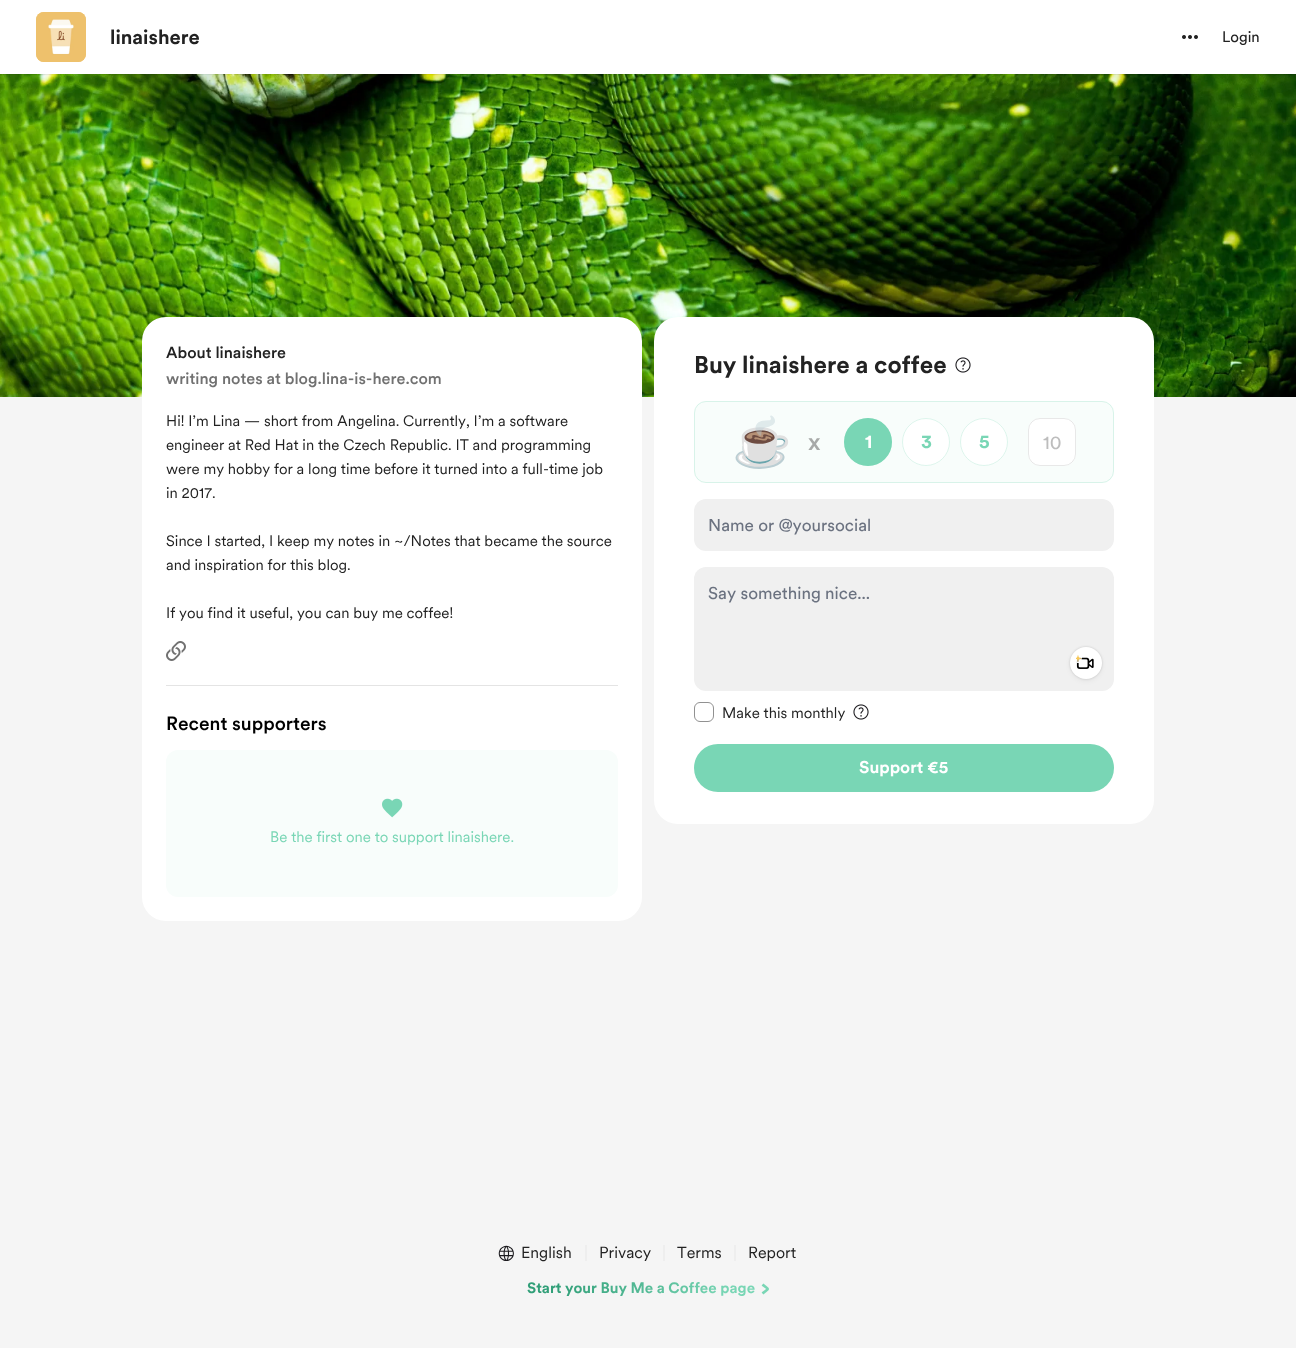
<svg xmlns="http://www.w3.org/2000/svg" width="1296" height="1348">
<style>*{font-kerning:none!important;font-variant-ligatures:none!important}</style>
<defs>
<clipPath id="clip1"><rect x="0" y="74" width="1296" height="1"/></clipPath>
<linearGradient id="g1" gradientUnits="userSpaceOnUse" x1="541" y1="1243" x2="755" y2="1334"><stop offset="0.14" stop-color="#319f78"/><stop offset="0.82" stop-color="#79d6b5"/></linearGradient>
</defs>
<rect width="100%" height="100%" fill="#fff"/>
<image x="0" y="74" width="1296" height="323" href="media/4.png"/>
<g clip-path="url(#clip1)">
<rect y="1" width="1296" height="74" fill="#0000000f" filter="blur(0.5px)"/>
</g>
<image x="36" y="12" width="50" height="50" href="media/1.png"/>
<image x="36" y="12" width="50" height="50" href="media/2.png"/>
<text x="110" y="44" style="font-family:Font;font-size:20px;font-weight:bold;fill:#222">linaishere</text>
<image x="1182" y="35" width="16" height="4" href="media/3.png"/>
<text x="1222" y="42" style="font-family:'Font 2';font-size:15px;fill:#222">Login</text>
<rect y="397" width="1296" height="951" fill="#f5f5f5"/>
<rect x="142" y="317" width="500" height="604" rx="24" fill="#fff"/>
<rect x="166" y="685" width="452" height="1" fill="#e4e4e4"/>
<text x="166" y="358" style="font-family:Font;font-size:16px;font-weight:500;fill:#222">About linaishere</text>
<text x="166" y="384" style="font-family:Font;font-size:16px;font-weight:500;fill:#717171">writing notes at blog.lina-is-here.com</text>
<text x="166" y="426" style="font-family:Font;font-size:15px;fill:#222">Hi! I’m Lina — short from Angelina. Currently, I’m a software</text>
<text x="166" y="450" style="font-family:Font;font-size:15px;fill:#222">engineer at Red Hat in the Czech Republic. IT and programming</text>
<text x="166" y="474" style="font-family:Font;font-size:15px;fill:#222">were my hobby for a long time before it turned into</text>
<text x="511" y="474" style="font-family:Font;font-size:15px;fill:#222">a full-time job</text>
<text x="166" y="498" style="font-family:Font;font-size:15px;fill:#222">in 2017.</text>
<text x="166" y="546" style="font-family:Font;font-size:15px;fill:#222">Since I started, I keep my notes in ~/Notes that became the source</text>
<text x="166" y="570" style="font-family:Font;font-size:15px;fill:#222">and inspiration for this blog.</text>
<text x="166" y="618" style="font-family:Font;font-size:15px;fill:#222">If you find it useful, you can buy me coffee!</text>
<image x="166" y="641" width="20" height="20" href="media/5.png"/>
<text x="166" y="730" style="font-family:Font;font-size:19px;font-weight:500;fill:#000">Recent supporters</text>
<rect x="166" y="750" width="452" height="147" rx="12" fill="#f8fdfb"/>
<image x="382" y="798" width="21" height="20" href="media/6.png"/>
<text x="270" y="842" style="font-family:Font;font-size:15px;fill:#79d6b5">Be the first one to support linaishere.</text>
<rect x="654" y="317" width="500" height="507" rx="24" fill="#fff"/>
<text x="694" y="373" style="font-family:Font;font-size:24px;font-weight:bold;fill:#222">Buy linaishere a coffee</text>
<image x="955" y="357" width="16" height="16" href="media/7.png"/>
<rect x="694" y="401" width="420" height="82" rx="12" fill="#f8fdfb"/>
<rect x="694.5" y="401.5" width="419" height="81" rx="11.5" fill="none" stroke="#79d6b540"/>
<text x="732" y="459" style="font-family:Noto Color Emoji;font-size:48px;fill:#000">☕</text>
<text x="808" y="450" style="font-family:Font;font-size:24px;font-weight:500;fill:#a7a9a8">x</text>
<circle cx="868" cy="442" r="24" fill="#79d6b5"/>
<circle cx="868" cy="442" r="23.5" fill="none" stroke="#79d6b540"/>
<text x="865" y="448" style="font-family:Font;font-size:19px;font-weight:bold;fill:#fff">1</text>
<circle cx="926" cy="442" r="24" fill="#fff"/>
<circle cx="926" cy="442" r="23.5" fill="none" stroke="#79d6b540"/>
<text x="921" y="448" style="font-family:Font;font-size:19px;font-weight:bold;fill:#79d6b5">3</text>
<circle cx="984" cy="442" r="24" fill="#fff"/>
<circle cx="984" cy="442" r="23.5" fill="none" stroke="#79d6b540"/>
<text x="979" y="448" style="font-family:Font;font-size:19px;font-weight:bold;fill:#79d6b5">5</text>
<rect x="1028" y="418" width="48" height="48" rx="12" fill="#fff"/>
<rect x="1028.5" y="418.5" width="47" height="47" rx="11.5" fill="none" stroke="#2222221a"/>
<text x="1043" y="449" style="font-family:'Font 2';font-size:19px;fill:#bdbdbd">10</text>
<rect x="694" y="499" width="420" height="52" rx="12" fill="#f0f0f0"/>
<text x="708" y="531" style="font-family:'Font 2';font-size:17px;fill:#6b7280">Name or @yoursocial</text>
<rect x="694" y="567" width="420" height="124" rx="12" fill="#f0f0f0"/>
<text x="708" y="599" style="font-family:'Font 2';font-size:17px;fill:#6b7280">Say something nice...</text>
<rect x="1070" y="649" width="32" height="32" rx="16" fill="#0000000d" filter="blur(2.5px)"/>
<rect x="1070" y="647" width="32" height="32" rx="16" fill="#00000026" filter="blur(1px)"/>
<circle cx="1086" cy="663" r="16" fill="#fff"/>
<image x="1076" y="657" width="18" height="12" href="media/9.png"/>
<image x="1076" y="655" width="6" height="8" href="media/8.png"/>
<rect x="694.5" y="702.5" width="19" height="19" rx="5.5" fill="none" stroke="#919191"/>
<text x="722" y="718" style="font-family:Font;font-size:15px;fill:#222">Make this monthly</text>
<image x="853" y="704" width="16" height="16" href="media/7.png"/>
<rect x="694" y="744" width="420" height="48" rx="24" fill="#79d6b5"/>
<text x="859" y="773" style="font-family:Font;font-size:17px;font-weight:bold;fill:#fff">Support €5</text>
<image x="498" y="1245" width="16" height="16" href="media/10.png"/>
<text x="521" y="1258" style="font-family:Font;font-size:16px;fill:#222">English</text>
<path d="M586 1245v16" fill="none" stroke="#e7e7e7"/>
<text x="599" y="1258" style="font-family:Font;font-size:16px;fill:#222">Privacy</text>
<path d="M664 1245v16" fill="none" stroke="#e7e7e7"/>
<text x="677" y="1258" style="font-family:Font;font-size:16px;fill:#222">Terms</text>
<path d="M735 1245v16" fill="none" stroke="#e7e7e7"/>
<text x="748" y="1258" style="font-family:Font;font-size:16px;fill:#222">Report</text>
<text x="527" y="1293" style="font-family:Font;font-size:15px;font-weight:bold;fill:url(#g1)">Start your Buy Me a Coffee page</text>
<path d="M762.5 1284.5c7 6 7 3 0 9" fill="none" stroke="#79d6b5" stroke-width="2.7"/>
</svg>
